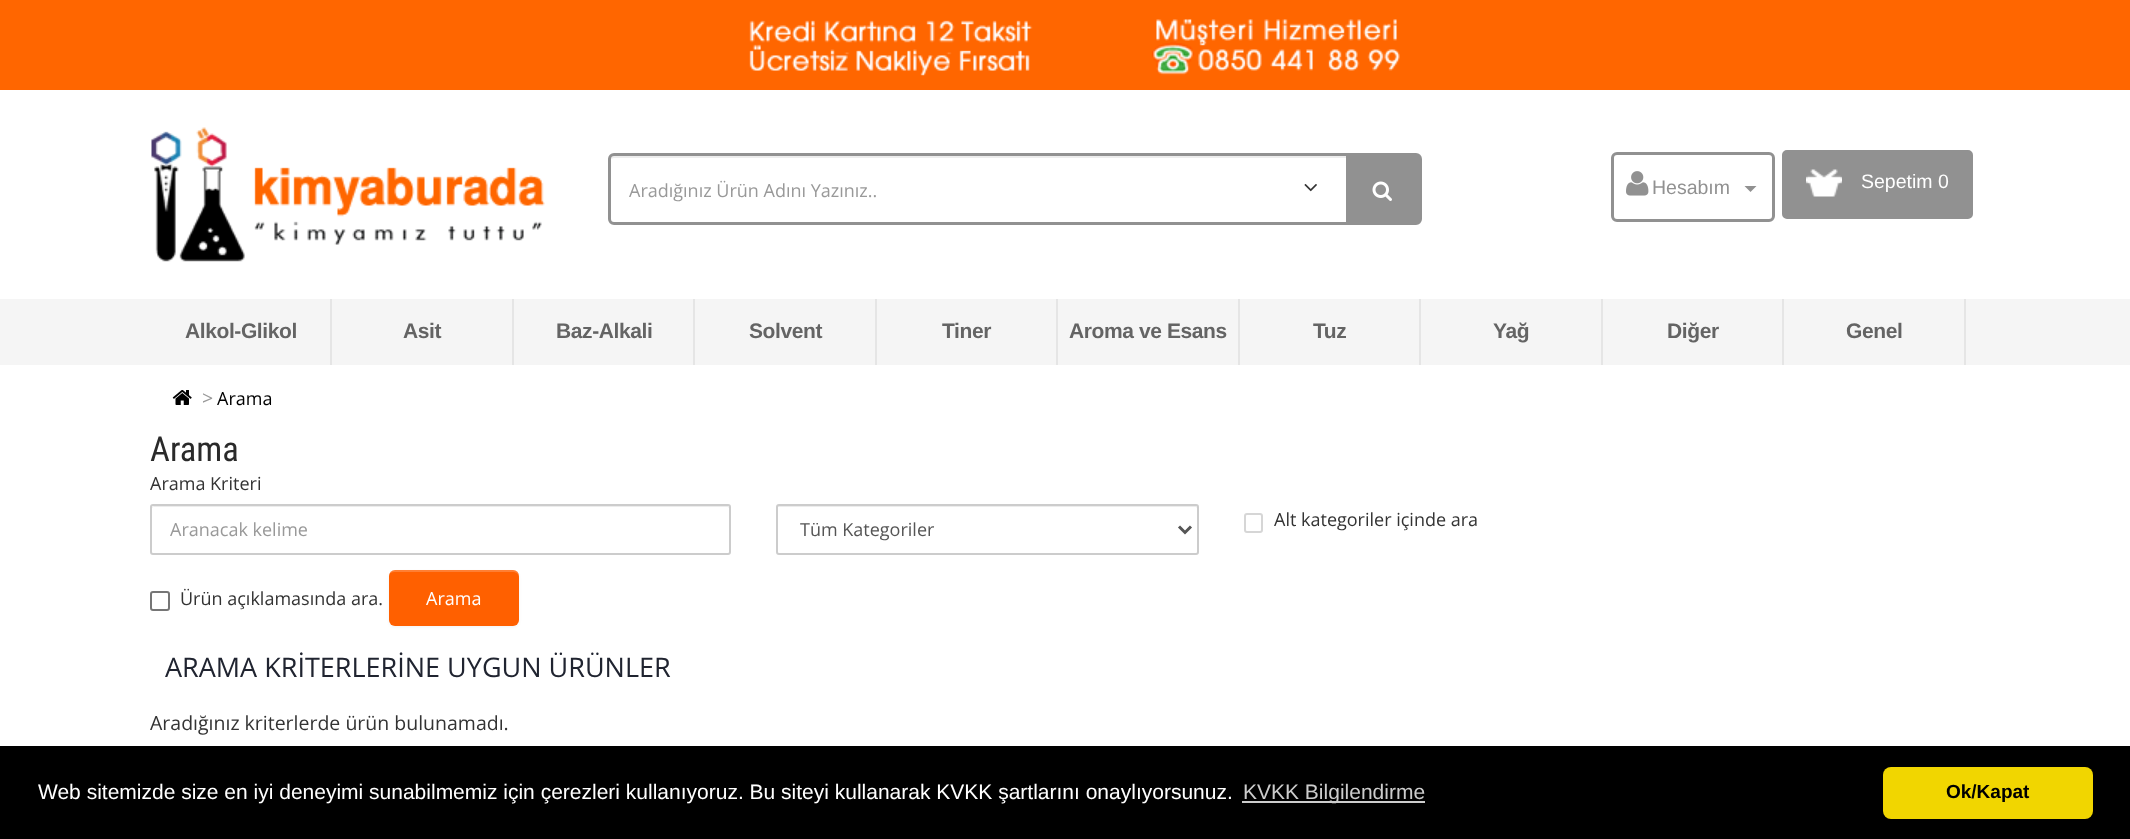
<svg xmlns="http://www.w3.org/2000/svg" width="2130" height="839">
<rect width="100%" height="100%" fill="#fff"/>
<rect width="2130" height="90" fill="#f60"/>
<image x="749" y="19" width="651" height="57" href="media/1.png"/>
<image x="151" y="127" width="394" height="135" href="media/2.png"/>
<rect x="609.5" y="154.5" width="811" height="69" rx="4.5" fill="none" stroke="#919191" stroke-width="3"/>
<path d="M614 158h744v-2h-744c-2 0-3 1-3 3z" fill="#00000012"/>
<text x="629" y="197" style="font-family:Open Sans;font-size:18px;fill:#999">Aradığınız Ürün Adını Yazınız..</text>
<image x="1304" y="184" width="13" height="8" href="media/3.png"/>
<rect x="1346" y="156" width="73" height="66" fill="#919191"/>
<image x="1372" y="181" width="20" height="20" href="media/4.png"/>
<rect x="1612.5" y="153.5" width="161" height="67" rx="4.5" fill="none" stroke="#919191" stroke-width="3"/>
<image x="1626" y="171" width="23" height="25" href="media/5.png"/>
<text x="1652" y="194" style="font-family:Liberation Sans;font-size:19.5px;fill:#919191">Hesabım</text>
<path d="M1744.5 186h12l-6 6z" fill="#919191"/>
<rect x="1783" y="151" width="189" height="67" rx="4" fill="#919191" stroke="#919191" stroke-width="2"/>
<image x="1806" y="169" width="36" height="28" href="media/6.png"/>
<text x="1861" y="188" style="font-family:Liberation Sans;font-size:19.5px;fill:#fff">Sepetim 0</text>
<rect y="299" width="2130" height="66" fill="#f5f5f5"/>
<rect x="330" y="299" width="2" height="66" fill="#e5e5e5"/>
<text x="185" y="338" style="font-family:Liberation Sans;font-size:21px;font-weight:bold;letter-spacing:-0.4px;fill:#646464">Alkol-Glikol</text>
<rect x="512" y="299" width="2" height="66" fill="#e5e5e5"/>
<text x="403" y="338" style="font-family:Liberation Sans;font-size:21px;font-weight:bold;letter-spacing:-0.4px;fill:#646464">Asit</text>
<rect x="693" y="299" width="2" height="66" fill="#e5e5e5"/>
<text x="556" y="338" style="font-family:Liberation Sans;font-size:21px;font-weight:bold;letter-spacing:-0.4px;fill:#646464">Baz-Alkali</text>
<rect x="875" y="299" width="2" height="66" fill="#e5e5e5"/>
<text x="749" y="338" style="font-family:Liberation Sans;font-size:21px;font-weight:bold;letter-spacing:-0.4px;fill:#646464">Solvent</text>
<rect x="1056" y="299" width="2" height="66" fill="#e5e5e5"/>
<text x="942" y="338" style="font-family:Liberation Sans;font-size:21px;font-weight:bold;letter-spacing:-0.4px;fill:#646464">Tiner</text>
<rect x="1238" y="299" width="2" height="66" fill="#e5e5e5"/>
<text x="1069" y="338" style="font-family:Liberation Sans;font-size:21px;font-weight:bold;letter-spacing:-0.4px;fill:#646464">Aroma ve Esans</text>
<rect x="1419" y="299" width="2" height="66" fill="#e5e5e5"/>
<text x="1313" y="338" style="font-family:Liberation Sans;font-size:21px;font-weight:bold;letter-spacing:-0.4px;fill:#646464">Tuz</text>
<rect x="1601" y="299" width="2" height="66" fill="#e5e5e5"/>
<text x="1493" y="338" style="font-family:Liberation Sans;font-size:21px;font-weight:bold;letter-spacing:-0.4px;fill:#646464">Yağ</text>
<rect x="1782" y="299" width="2" height="66" fill="#e5e5e5"/>
<text x="1667" y="338" style="font-family:Liberation Sans;font-size:21px;font-weight:bold;letter-spacing:-0.4px;fill:#646464">Diğer</text>
<rect x="1964" y="299" width="2" height="66" fill="#e5e5e5"/>
<text x="1846" y="338" style="font-family:Liberation Sans;font-size:21px;font-weight:bold;letter-spacing:-0.4px;fill:#646464">Genel</text>
<image x="172" y="390" width="20" height="15" href="media/7.png"/>
<text x="202" y="405" style="font-family:Open Sans;font-size:19.5px;fill:#999">&gt;</text>
<text x="217" y="405" style="font-family:Open Sans;font-size:18px;fill:#000">Arama</text>
<text x="150" y="461" style="font-family:Roboto Condensed;font-size:34.5px;fill:#2a2a2a">Arama</text>
<text x="150" y="490" style="font-family:Open Sans;font-size:18px;fill:#333">Arama Kriteri</text>
<path d="M153 507h575l1 1v-1l-1-1h-574l-2 1v1z" fill="#ececec"/>
<rect x="151" y="505" width="579" height="49" rx="2" fill="none" stroke="#ccc" stroke-width="2"/>
<text x="170" y="536" style="font-family:Open Sans;font-size:18px;fill:#999">Aranacak kelime</text>
<path d="M778 507h418l1 1c0-1 0-2-1-2h-418c-1 0-1 1-1 2z" fill="#ececec"/>
<rect x="777" y="505" width="421" height="49" rx="2" fill="none" stroke="#ccc" stroke-width="2"/>
<path d="M1179 526.5l6 6l6-6" fill="none" stroke="#555" stroke-width="3"/>
<text x="800" y="536" style="font-family:Open Sans;font-size:18px;fill:#555">Tüm Kategoriler</text>
<rect x="1245" y="514" width="17" height="18" rx="2" fill="none" stroke="#d6d6d6" stroke-width="2"/>
<text x="1274" y="526" style="font-family:Open Sans;font-size:18px;fill:#333">Alt kategoriler içinde ara</text>
<rect x="151" y="592" width="18" height="18" rx="2" fill="none" stroke="#767676" stroke-width="2"/>
<text x="180" y="605" style="font-family:Open Sans;font-size:18px;fill:#333">Ürün açıklamasında ara.</text>
<rect x="389" y="572" width="130" height="55" rx="6" fill="#0000000d" filter="blur(1.5px)"/>
<rect x="389" y="570" width="130" height="56" rx="6" fill="#ff6000"/>
<path d="M394 572h119c3 0 6 2 6 6v-2c0-3-3-6-6-6h-118c-3 0-5 2-6 4c1-1 3-2 5-2z" fill="#ffffff33"/>
<text x="426" y="605" style="font-family:Open Sans;font-size:18px;fill:#fff">Arama</text>
<text x="165" y="677" style="font-family:Open Sans;font-size:27px;fill:#202430">ARAMA KRİTERLERİNE UYGUN ÜRÜNLER</text>
<text x="150" y="730" style="font-family:Open Sans;font-size:19.5px;fill:#333">Aradığınız kriterlerde ürün bulunamadı.</text>
<rect y="746" width="2130" height="93" fill="#000"/>
<text x="38" y="799" style="font-family:Liberation Sans;font-size:21px;fill:#fff">Web sitemizde size en iyi deneyimi sunabilmemiz için çerezleri kullanıyoruz. Bu siteyi kullanarak KVKK şartlarını onaylıyorsunuz.</text>
<rect x="1242" y="801" width="183" height="2" fill="#ccc"/>
<text x="1243" y="799" style="font-family:Liberation Sans;font-size:21px;fill:#ccc">KVKK Bilgilendirme</text>
<rect x="1883" y="767" width="210" height="52" rx="8" fill="#f1d600"/>
<text x="1946" y="798" style="font-family:Liberation Sans;font-size:19px;font-weight:bold;fill:#000">Ok/Kapat</text>
</svg>
